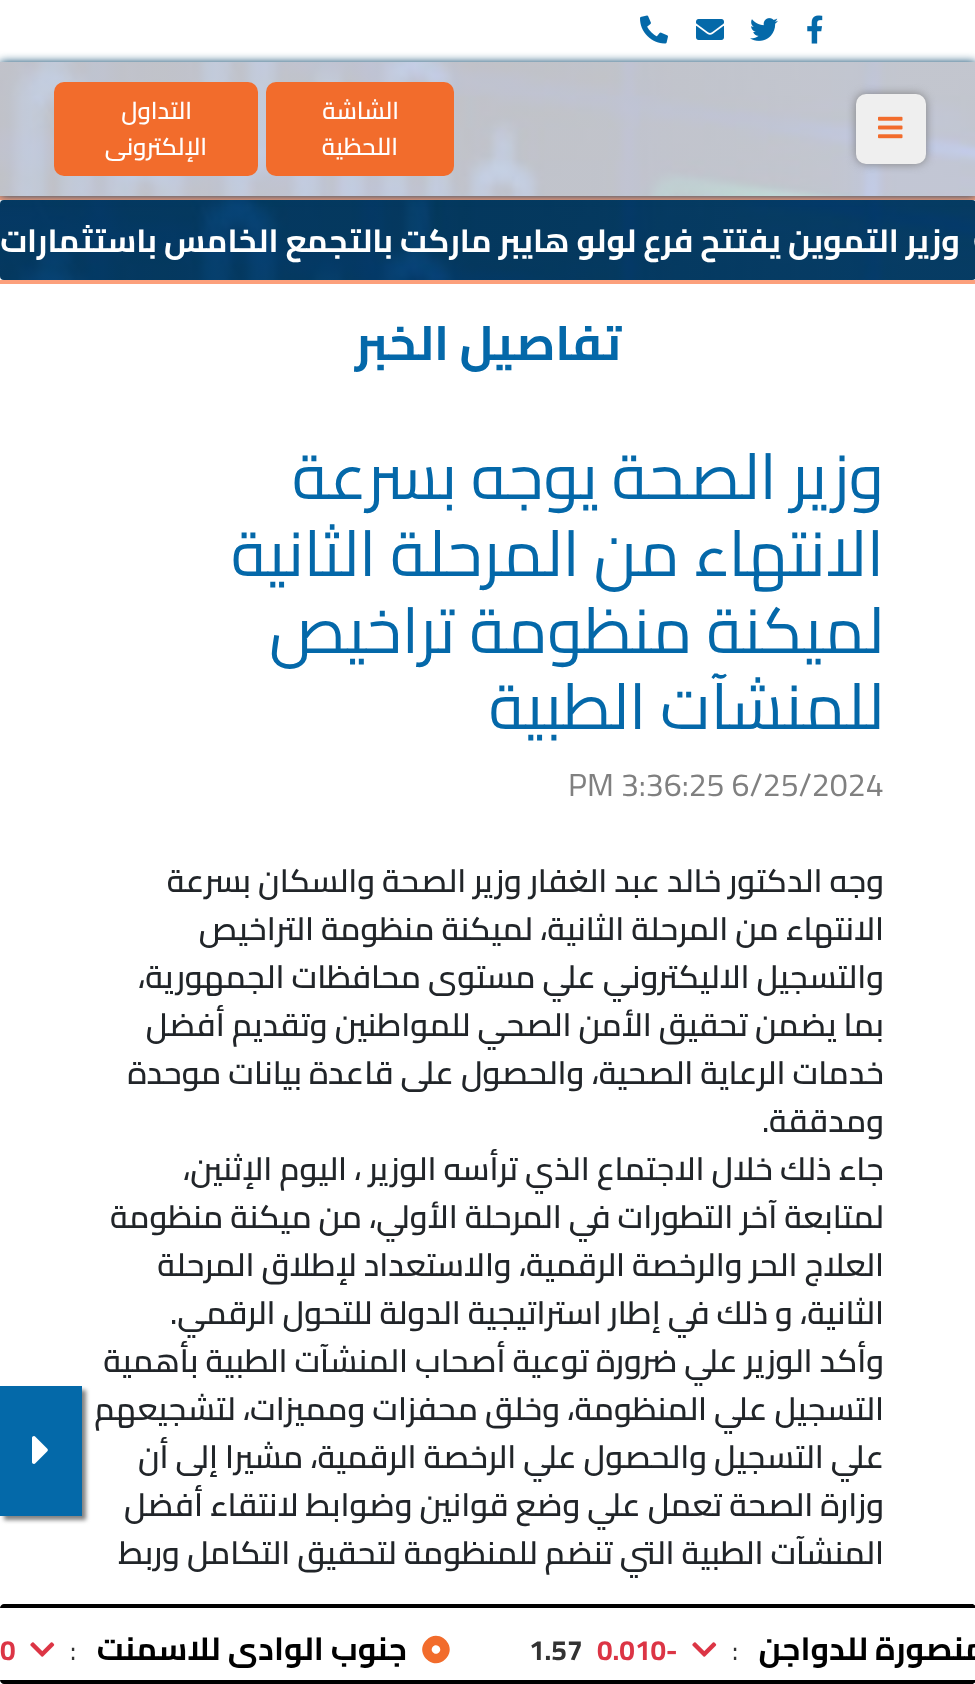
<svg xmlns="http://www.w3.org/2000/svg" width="975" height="1684">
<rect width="100%" height="100%" fill="#fff"/>
<image x="807" y="15" width="16" height="29" href="media/1.png"/>
<image x="750" y="18" width="28" height="23" href="media/2.png"/>
<image x="696" y="19" width="28" height="21" href="media/3.png"/>
<image x="640" y="15" width="28" height="29" href="media/4.png"/>
<rect y="196" width="975" height="4" fill="#fca07c"/>
<image x="0" y="200" width="975" height="80" href="media/7.png"/>
<rect y="62" width="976" height="134" fill="#034168" filter="blur(5px)"/>
<image x="0" y="62" width="975" height="134" href="media/5.png"/>
<rect x="856" y="94" width="70" height="70" rx="10" fill="#808080" filter="blur(5px)"/>
<rect x="856" y="94" width="70" height="70" rx="10" fill="#efefef"/>
<image x="878" y="116" width="25" height="23" href="media/6.png"/>
<rect x="266" y="82" width="188" height="94" rx="10" fill="#f26c2c"/>
<text x="399" y="119" style="font-family:Cairo;font-size:24px;font-weight:600;direction:rtl;fill:#fff">الشاشة</text>
<text x="398" y="155" style="font-family:Cairo;font-size:24px;font-weight:600;direction:rtl;fill:#fff">اللحظية</text>
<rect x="54" y="82" width="204" height="94" rx="10" fill="#f26c2c"/>
<text x="192" y="119" style="font-family:Cairo;font-size:24px;font-weight:600;direction:rtl;fill:#fff">التداول</text>
<text x="207" y="155" style="font-family:Cairo;font-size:24px;font-weight:600;direction:rtl;fill:#fff">الإلكترونى</text>
<rect y="280" width="975" height="4" fill="#fca07c"/>
<path d="M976 235v13c-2-4-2.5-8.5 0-13z" fill="#f5f5f5"/>
<text x="960" y="252" style="font-family:Cairo;font-size:32px;font-weight:bold;direction:rtl;fill:#fff">وزير التموين يفتتح فرع لولو هايبر ماركت بالتجمع الخامس باستثمارات &amp;#</text>
<text x="621" y="360" style="font-family:Cairo;font-size:48px;font-weight:bold;direction:rtl;fill:#0468a9">تفاصيل الخبر</text>
<text x="884" y="499" style="font-family:Cairo;font-size:64px;direction:rtl;fill:#0468a9">وزير الصحة يوجه بسرعة</text>
<text x="884" y="576" style="font-family:Cairo;font-size:64px;direction:rtl;fill:#0468a9">الانتهاء من المرحلة الثانية</text>
<text x="884" y="653" style="font-family:Cairo;font-size:64px;direction:rtl;fill:#0468a9">لميكنة منظومة تراخيص</text>
<text x="884" y="729" style="font-family:Cairo;font-size:64px;direction:rtl;fill:#0468a9">للمنشآت الطبية</text>
<text x="568" y="796" style="font-family:Cairo;font-size:32px;fill:#808080">PM 3:36:25 6/25/2024</text>
<text x="884" y="892" style="font-family:Cairo;font-size:32px;font-weight:600;direction:rtl;fill:#212529">وجه الدكتور خالد عبد الغفار وزير الصحة والسكان بسرعة</text>
<text x="884" y="940" style="font-family:Cairo;font-size:32px;font-weight:600;direction:rtl;fill:#212529">الانتهاء من المرحلة الثانية، لميكنة منظومة التراخيص</text>
<text x="884" y="988" style="font-family:Cairo;font-size:32px;font-weight:600;direction:rtl;fill:#212529">والتسجيل الاليكتروني علي مستوى محافظات الجمهورية،</text>
<text x="884" y="1036" style="font-family:Cairo;font-size:32px;font-weight:600;direction:rtl;fill:#212529">بما يضمن تحقيق الأمن الصحي للمواطنين وتقديم أفضل</text>
<text x="884" y="1084" style="font-family:Cairo;font-size:32px;font-weight:600;direction:rtl;fill:#212529">خدمات الرعاية الصحية، والحصول على قاعدة بيانات موحدة</text>
<text x="884" y="1132" style="font-family:Cairo;font-size:32px;font-weight:600;direction:rtl;fill:#212529">ومدققة.</text>
<text x="884" y="1180" style="font-family:Cairo;font-size:32px;font-weight:600;direction:rtl;fill:#212529">جاء ذلك خلال الاجتماع الذي ترأسه الوزير ، اليوم الإثنين،</text>
<text x="884" y="1228" style="font-family:Cairo;font-size:32px;font-weight:600;direction:rtl;fill:#212529">لمتابعة آخر التطورات في المرحلة الأولي، من ميكنة منظومة</text>
<text x="884" y="1276" style="font-family:Cairo;font-size:32px;font-weight:600;direction:rtl;fill:#212529">العلاج الحر والرخصة الرقمية، والاستعداد لإطلاق المرحلة</text>
<text x="884" y="1324" style="font-family:Cairo;font-size:32px;font-weight:600;direction:rtl;fill:#212529">الثانية، و ذلك في إطار استراتيجية الدولة للتحول الرقمي.</text>
<text x="884" y="1372" style="font-family:Cairo;font-size:32px;font-weight:600;direction:rtl;fill:#212529">وأكد الوزير علي ضرورة توعية أصحاب المنشآت الطبية بأهمية</text>
<text x="884" y="1420" style="font-family:Cairo;font-size:32px;font-weight:600;direction:rtl;fill:#212529">التسجيل علي المنظومة، وخلق محفزات ومميزات، لتشجيعهم</text>
<text x="884" y="1468" style="font-family:Cairo;font-size:32px;font-weight:600;direction:rtl;fill:#212529">علي التسجيل والحصول علي الرخصة الرقمية، مشيرا إلى أن</text>
<text x="884" y="1516" style="font-family:Cairo;font-size:32px;font-weight:600;direction:rtl;fill:#212529">وزارة الصحة تعمل علي وضع قوانين وضوابط لانتقاء أفضل</text>
<text x="884" y="1564" style="font-family:Cairo;font-size:32px;font-weight:600;direction:rtl;fill:#212529">المنشآت الطبية التي تنضم للمنظومة لتحقيق التكامل وربط</text>
<rect x="4" y="1390" width="82" height="130" fill="#808080" filter="blur(2px)"/>
<rect y="1386" width="82" height="130" fill="#0469a9"/>
<image x="32" y="1436" width="16" height="28" href="media/8.png"/>
<path d="M4 1604h968c2 0 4 2 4 4h-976c0-2 2-4 4-4z" fill="#000"/>
<path d="M0 1680h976c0 2-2 4-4 4h-968c-2 0-4-2-4-4z" fill="#000"/>
<text x="1007" y="1660" style="font-family:Cairo;font-size:32px;font-weight:bold;direction:rtl;fill:#000">المنصورة للدواجن</text>
<text x="732" y="1660" style="font-family:Cairo;font-size:28px;fill:#333">:</text>
<image x="692" y="1642" width="25" height="15" href="media/9.png"/>
<text x="597" y="1660" style="font-family:Cairo;font-size:28px;font-weight:bold;fill:#dc3545">0.010-</text>
<text x="529" y="1660" style="font-family:Cairo;font-size:28px;font-weight:bold;fill:#333">1.57</text>
<path d="M426.5 1640c12.5-13 32 6.5 19 19c-12.5 13-32-6.5-19-19zm12.5 12.5c4-4-2-10-6-6c-4 4 2 10 6 6z" fill="#f26c2c"/>
<text x="407" y="1660" style="font-family:Cairo;font-size:32px;font-weight:bold;direction:rtl;fill:#000">جنوب الوادى للاسمنت</text>
<text x="70" y="1660" style="font-family:Cairo;font-size:28px;fill:#333">:</text>
<image x="30" y="1642" width="25" height="15" href="media/9.png"/>
<text x="0" y="1660" style="font-family:Cairo;font-size:28px;font-weight:bold;fill:#dc3545">0</text>
</svg>
